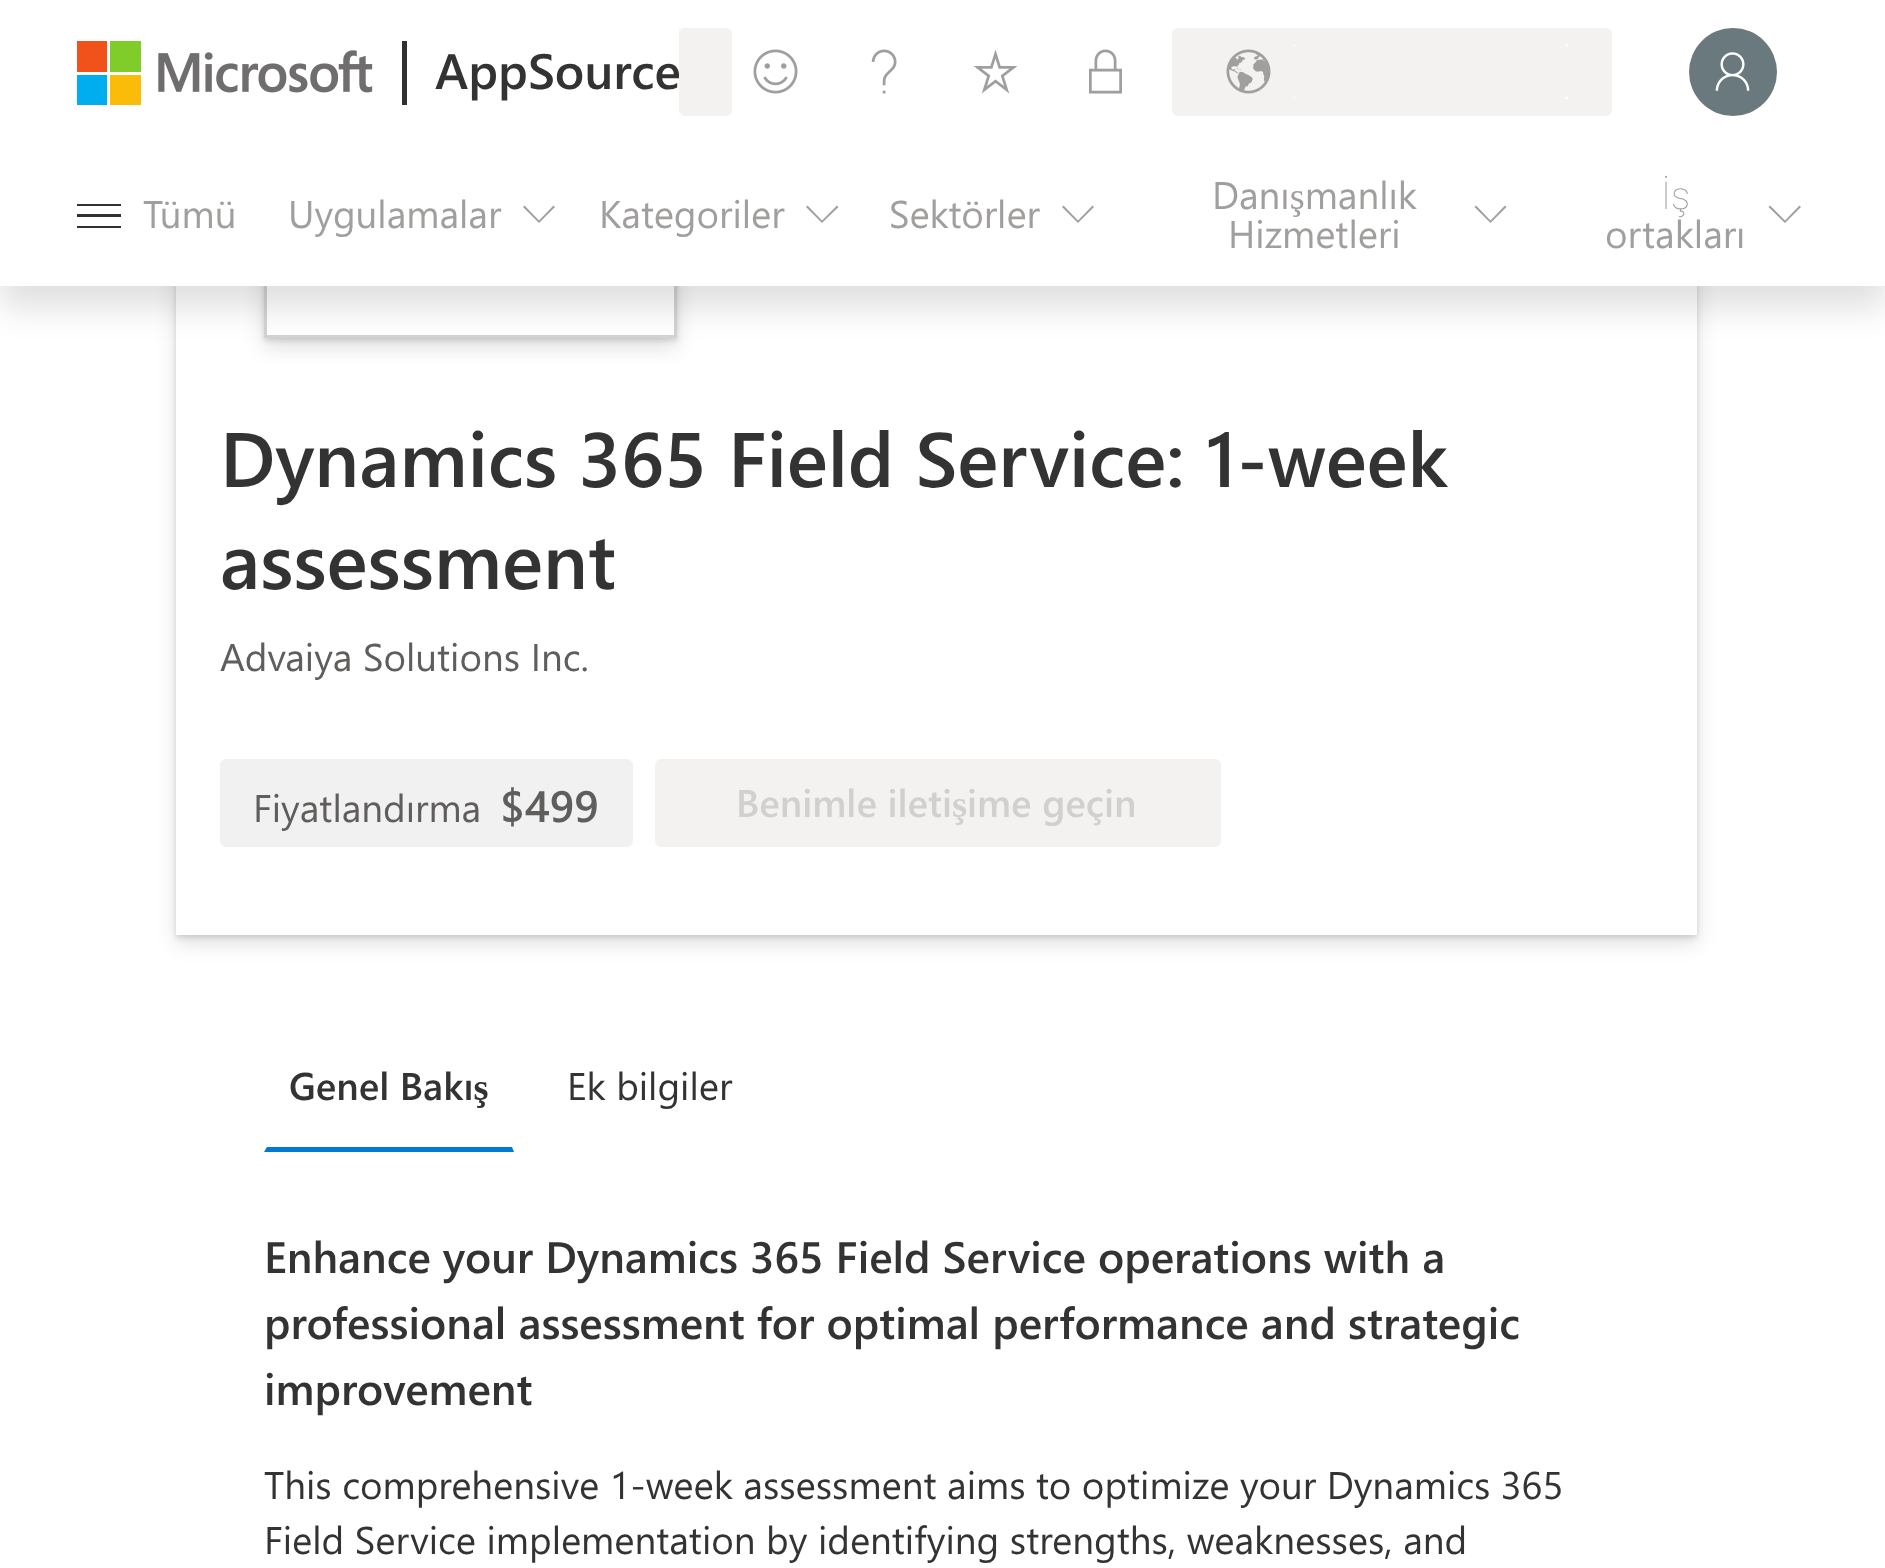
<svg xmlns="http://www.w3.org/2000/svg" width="1885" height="1568">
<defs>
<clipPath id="clip1"><path d="M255 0h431v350h-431zm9-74h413v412h-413z" clip-rule="evenodd"/></clipPath>
<clipPath id="clip2"><path d="M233 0h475v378h-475zm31-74h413v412h-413z" clip-rule="evenodd"/></clipPath>
</defs>
<rect width="100%" height="100%" fill="#fff"/>
<rect x="176" y="-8" width="1521" height="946" fill="#0000001c" filter="blur(2.5px)"/>
<rect x="176" y="-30" width="1521" height="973" fill="#00000021" filter="blur(10px)"/>
<rect x="176" y="286" width="1521" height="649" fill="#fff"/>
<g clip-path="url(#clip1)">
<rect x="264" y="-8" width="413" height="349" fill="#0000001c" filter="blur(2.5px)"/>
</g>
<g clip-path="url(#clip2)">
<rect x="264" y="-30" width="413" height="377" fill="#00000021" filter="blur(10px)"/>
</g>
<rect x="265.5" y="-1.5" width="410" height="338" fill="none" stroke="#d3d3d3" stroke-width="3"/>
<rect y="22" width="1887" height="286" fill="#0000001f" filter="blur(16px)"/>
<rect width="1885" height="286" fill="#fff"/>
<image x="77" y="41" width="296" height="64" href="media/1.png"/>
<rect x="402" y="41" width="5" height="64" fill="#323130"/>
<text x="435" y="89" style="font-family:Segoe UI;font-size:49.5px;font-weight:600;fill:#333">AppSource</text>
<rect x="679" y="28" width="53" height="88" fill="#f3f2f1"/>
<rect x="679" y="28" width="3" height="3" fill="#f9f9f9"/>
<rect x="729" y="28" width="3" height="3" fill="#fcfcfc"/>
<image x="679" y="112" width="4" height="4" href="media/2.png"/>
<image x="728" y="112" width="4" height="4" href="media/3.png"/>
<image x="753" y="49" width="45" height="45" href="media/4.png"/>
<image x="871" y="49" width="26" height="45" href="media/5.png"/>
<image x="973" y="49" width="45" height="45" href="media/6.png"/>
<image x="1089" y="49" width="33" height="45" href="media/7.png"/>
<rect x="1172" y="28" width="440" height="88" rx="6" fill="#f3f2f1"/>
<image x="1226" y="49" width="45" height="45" href="media/8.png"/>
<rect x="1293" y="44" width="3" height="3" fill="#f7f6f5"/>
<image x="1564" y="44" width="4" height="4" href="media/9.png"/>
<rect x="1293" y="96" width="3" height="3" fill="#f7f6f5"/>
<image x="1564" y="95" width="4" height="4" href="media/10.png"/>
<circle cx="1733" cy="72" r="44" fill="#69797e"/>
<image x="1715" y="52" width="35" height="39" href="media/11.png"/>
<path d="M121 206h-44v-2h44zm0 22h-44v-2h44zm0-11h-44v-3h44z" fill="#323130"/>
<text x="143" y="228" style="font-family:Segoe UI;font-size:38.5px;fill:#a19f9d">Tümü</text>
<text x="288" y="228" style="font-family:Segoe UI;font-size:38.5px;fill:#a19f9d">Uygulamalar</text>
<path d="M553.5 205.5l1.5 1.5l-16 16l-16-16l1.5-1.5l14.5 15z" fill="#a19f9d"/>
<text x="599" y="228" style="font-family:Segoe UI;font-size:38.5px;fill:#a19f9d">Kategoriler</text>
<path d="M837 205.5l1.5 1.5l-16.5 16l-16-16l1.5-1.5l14.5 15z" fill="#a19f9d"/>
<text x="889" y="228" style="font-family:Segoe UI;font-size:38.5px;fill:#a19f9d">Sektörler</text>
<path d="M1092.5 205.5l1.5 1.5l-16 16l-16-16l1.5-1.5l14.5 15z" fill="#a19f9d"/>
<text x="1212" y="209" style="font-family:Segoe UI;font-size:38.5px;fill:#a19f9d">Danışmanlık</text>
<text x="1228" y="248" style="font-family:Segoe UI;font-size:38.5px;fill:#a19f9d">Hizmetleri</text>
<path d="M1505 205.5l1.5 1.5l-16 16l-16-16l1.5-1.5l14.5 15z" fill="#a19f9d"/>
<text x="1661" y="209" style="font-family:Roboto;font-size:38.5px;font-weight:100;fill:#a19f9d">İş</text>
<text x="1605" y="248" style="font-family:Segoe UI;font-size:38.5px;fill:#a19f9d">ortakları</text>
<path d="M1799.5 205.5l1.5 1.5l-16 16l-16.5-16l1.5-1.5l15 15z" fill="#a19f9d"/>
<text x="220" y="487" style="font-family:Segoe UI;font-size:77px;font-weight:600;fill:#333">Dynamics 365 Field Service: 1-week</text>
<text x="220" y="589" style="font-family:Segoe UI;font-size:77px;font-weight:600;fill:#333">assessment</text>
<text x="220" y="671" style="font-family:Segoe UI;font-size:38.5px;fill:#605e5c">Advaiya Solutions Inc.</text>
<rect x="220" y="759" width="413" height="88" rx="6" fill="#f1f1f1"/>
<text x="253" y="822" style="font-family:Segoe UI;font-size:38.5px;fill:#605e5c">Fiyatlandırma</text>
<text x="500" y="822" style="font-family:Segoe UI;font-size:44px;font-weight:600;fill:#605e5c">$499</text>
<rect x="656.5" y="760.5" width="563" height="85" rx="4.5" fill="#f3f2f1" stroke="#f3f2f1" stroke-width="3"/>
<text x="736" y="817" style="font-family:Segoe UI;font-size:38.5px;font-weight:600;fill:#d2d0ce">Benimle iletişime geçin</text>
<path d="M514 1152h-250l3-5h245z" fill="#0078d4"/>
<text x="289" y="1100" style="font-family:Segoe UI;font-size:38.5px;font-weight:600;fill:#333">Genel Bakış</text>
<text x="567" y="1100" style="font-family:Segoe UI;font-size:38.5px;fill:#333">Ek bilgiler</text>
<text x="264" y="1273" style="font-family:Segoe UI;font-size:44px;font-weight:600;fill:#333">Enhance your Dynamics 365 Field Service operations with a</text>
<text x="264" y="1339" style="font-family:Segoe UI;font-size:44px;font-weight:600;fill:#333">professional assessment for optimal performance and strategic</text>
<text x="264" y="1405" style="font-family:Segoe UI;font-size:44px;font-weight:600;fill:#333">improvement</text>
<text x="264" y="1499" style="font-family:Segoe UI;font-size:38.5px;fill:#333">This comprehensive 1-week assessment aims to optimize your Dynamics 365</text>
<text x="264" y="1554" style="font-family:Segoe UI;font-size:38.5px;fill:#333">Field Service implementation by identifying strengths, weaknesses, and</text>
</svg>
